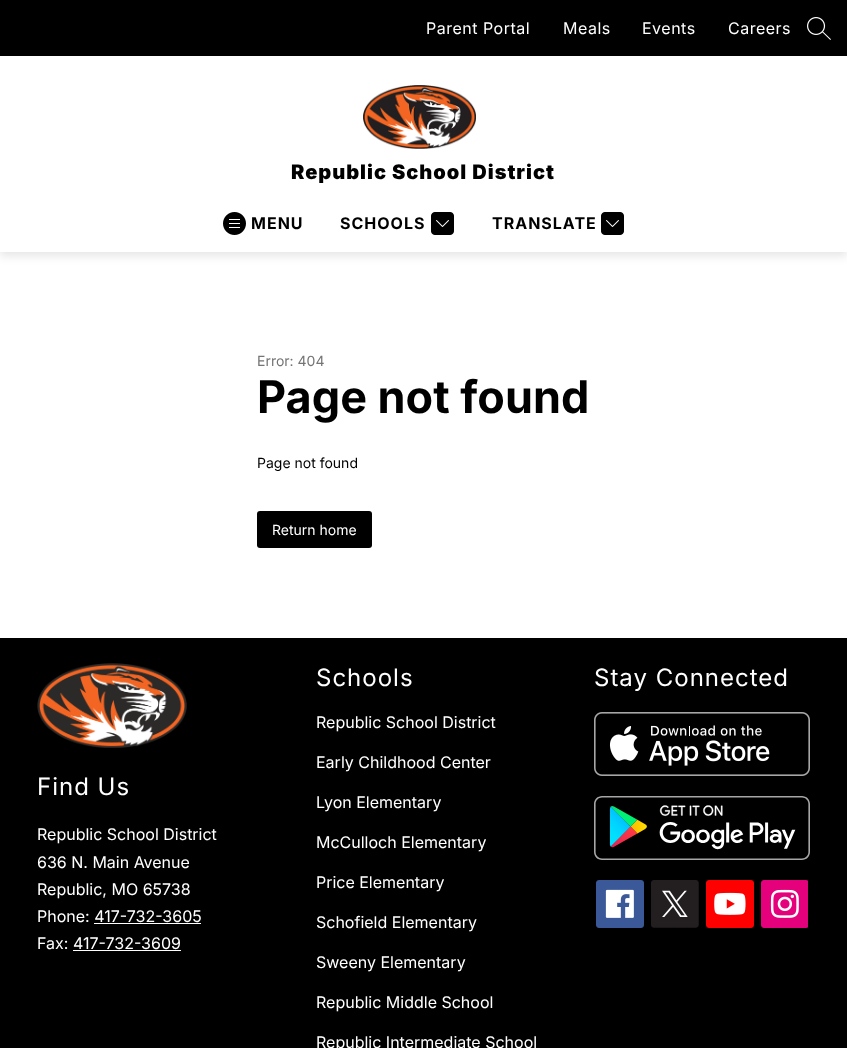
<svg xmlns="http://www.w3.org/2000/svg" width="847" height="1048">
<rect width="100%" height="100%" fill="#fff"/>
<rect y="4" width="847" height="252" fill="#0000001a" filter="blur(5px)"/>
<rect width="847" height="56" fill="#000"/>
<text x="426" y="34" style="font-family:Inter;font-size:16px;letter-spacing:0.5px;fill:#fff">Parent Portal</text>
<text x="563" y="34" style="font-family:Inter;font-size:16px;letter-spacing:0.5px;fill:#fff">Meals</text>
<text x="642" y="34" style="font-family:Inter;font-size:16px;letter-spacing:0.5px;fill:#fff">Events</text>
<text x="728" y="34" style="font-family:Inter;font-size:16px;letter-spacing:0.5px;fill:#fff">Careers</text>
<image x="807" y="17" width="24" height="23" href="media/1.png"/>
<rect y="56" width="847" height="196" fill="#fff"/>
<image x="363" y="85" width="113" height="64" href="media/2.png"/>
<text x="291" y="179" style="font-family:Inter;font-size:20px;font-weight:900;letter-spacing:1px;fill:#000">Republic School District</text>
<image x="223" y="212" width="23" height="23" href="media/3.png"/>
<text x="251" y="229" style="font-family:Inter;font-size:16px;font-weight:bold;letter-spacing:1px;fill:#000">MENU</text>
<text x="340" y="229" style="font-family:Inter;font-size:16px;font-weight:bold;letter-spacing:1px;fill:#000">SCHOOLS</text>
<image x="431" y="212" width="23" height="23" href="media/4.png"/>
<text x="492" y="229" style="font-family:Inter;font-size:16px;font-weight:bold;letter-spacing:1px;fill:#000">TRANSLATE</text>
<image x="601" y="212" width="23" height="23" href="media/4.png"/>
<text x="257" y="366" style="font-family:Inter;font-size:14px;fill:#747474">Error: 404</text>
<text x="257" y="413" style="font-family:Inter;font-size:45px;font-weight:bold;fill:#000">Page not found</text>
<text x="257" y="468" style="font-family:Inter;font-size:14px;fill:#000">Page not found</text>
<rect x="257" y="511" width="115" height="37" rx="3" fill="#000"/>
<text x="272" y="535" style="font-family:Inter;font-size:14px;fill:#fff">Return home</text>
<rect y="638" width="847" height="410" fill="#000"/>
<text x="316" y="686" style="font-family:Inter;font-size:24px;letter-spacing:1px;fill:#fff">Schools</text>
<text x="316" y="728" style="font-family:Inter;font-size:16px;fill:#fff">Republic School District</text>
<text x="316" y="768" style="font-family:Inter;font-size:16px;fill:#fff">Early Childhood Center</text>
<text x="316" y="808" style="font-family:Inter;font-size:16px;fill:#fff">Lyon Elementary</text>
<text x="316" y="848" style="font-family:Inter;font-size:16px;fill:#fff">McCulloch Elementary</text>
<text x="316" y="888" style="font-family:Inter;font-size:16px;fill:#fff">Price Elementary</text>
<text x="316" y="928" style="font-family:Inter;font-size:16px;fill:#fff">Schofield Elementary</text>
<text x="316" y="968" style="font-family:Inter;font-size:16px;fill:#fff">Sweeny Elementary</text>
<text x="316" y="1008" style="font-family:Inter;font-size:16px;fill:#fff">Republic Middle School</text>
<text x="316" y="1048" style="font-family:Inter;font-size:16px;fill:#fff">Republic Intermediate School</text>
<text x="594" y="686" style="font-family:Inter;font-size:24px;letter-spacing:1px;fill:#fff">Stay Connected</text>
<image x="594" y="712" width="216" height="64" href="media/5.png"/>
<image x="594" y="796" width="216" height="64" href="media/6.png"/>
<image x="596" y="880" width="48" height="48" href="media/7.png"/>
<image x="651" y="880" width="48" height="48" href="media/8.png"/>
<image x="706" y="880" width="48" height="48" href="media/9.png"/>
<image x="761" y="880" width="47" height="48" href="media/10.png"/>
<image x="37" y="663" width="150" height="85" href="media/11.png"/>
<text x="37" y="795" style="font-family:Inter;font-size:24px;letter-spacing:1px;fill:#fff">Find Us</text>
<text x="37" y="840" style="font-family:Inter;font-size:16px;fill:#fff">Republic School District</text>
<text x="37" y="868" style="font-family:Inter;font-size:16px;fill:#fff">636 N. Main Avenue</text>
<text x="37" y="895" style="font-family:Inter;font-size:16px;fill:#fff">Republic, MO 65738</text>
<text x="37" y="922" style="font-family:Inter;font-size:16px;fill:#fff">Phone: 417-732-3605</text>
<rect x="94" y="923" width="107" height="1" fill="#fff"/>
<text x="37" y="949" style="font-family:Inter;font-size:16px;fill:#fff">Fax: 417-732-3609</text>
<rect x="73" y="950" width="108" height="1" fill="#fff"/>
</svg>
